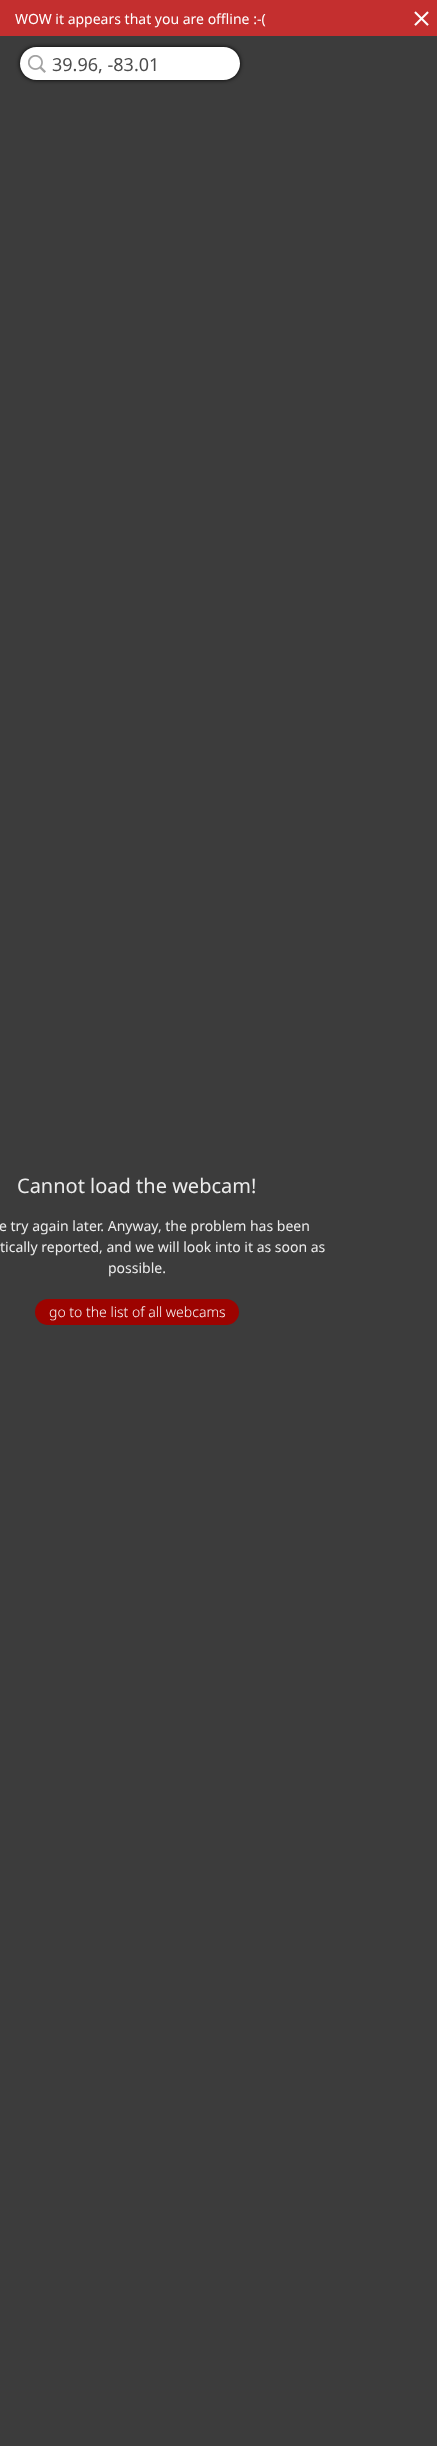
<svg xmlns="http://www.w3.org/2000/svg" width="437" height="2446">
<rect width="100%" height="100%" fill="#3c3c3c"/>
<rect width="437" height="36" fill="#c42f2f"/>
<text x="15" y="24" style="font-family:Noto Sans;font-size:14px;fill:#fff">WOW it appears that you are offline :-(</text>
<image x="414" y="11" width="15" height="15" href="media/1.png"/>
<text x="17" y="1193" style="font-family:Noto Sans;font-size:20px;fill:#ececec">Cannot load the webcam!</text>
<text x="-1" y="1231" style="font-family:Noto Sans;font-size:14px;fill:#ececec">e try again later. Anyway, the problem has been</text>
<text x="0" y="1252" style="font-family:Noto Sans;font-size:14px;fill:#ececec">tically reported, and we will look into it as soon as</text>
<text x="108" y="1273" style="font-family:Noto Sans;font-size:14px;fill:#ececec">possible.</text>
<rect x="35" y="1299" width="204" height="26" rx="13" fill="#9d0300"/>
<text x="49" y="1317" style="font-family:Noto Sans;font-size:14px;font-weight:300;fill:#f8f8f8">go to the list of all webcams</text>
<rect x="20" y="47" width="220" height="33" rx="16.5" fill="#000" filter="blur(2px)"/>
<rect x="20" y="47" width="220" height="33" rx="16.5" fill="#fff"/>
<image x="28" y="55" width="18" height="18" href="media/2.png"/>
<text x="52" y="71" style="font-family:Noto Sans;font-size:18px;fill:#4d4d4d">39.96, -83.01</text>
</svg>
